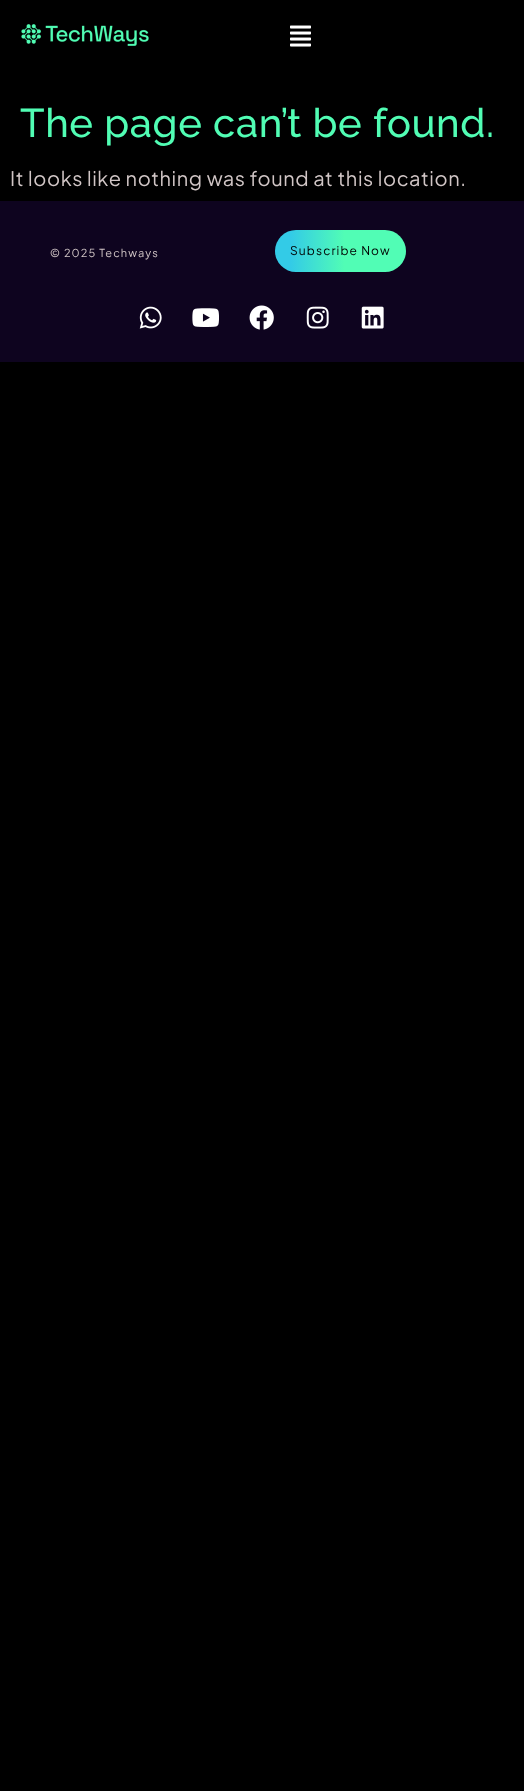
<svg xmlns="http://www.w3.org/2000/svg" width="524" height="1791">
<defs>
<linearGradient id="g1" gradientUnits="userSpaceOnUse" x1="275" y1="251" x2="406" y2="251"><stop offset="0.12" stop-color="#33cbe7"/><stop offset="0.53" stop-color="#51fdb5"/></linearGradient>
</defs>
<rect width="100%" height="100%" fill="#000"/>
<image x="21" y="24" width="128" height="22" href="media/1.png"/>
<image x="290" y="25" width="21" height="22" href="media/2.png"/>
<text x="20" y="137" style="font-family:Raleway;font-size:40px;font-weight:500;letter-spacing:0.6px;fill:#51fdb4">The page can’t be found.</text>
<text x="10" y="186" style="font-family:Plus Jakarta Sans;font-size:20px;letter-spacing:0.6px;fill:#d1c6c6">It looks like nothing was found at this location.</text>
<rect y="201" width="524" height="161" fill="#0e041f"/>
<text x="50" y="257" style="font-family:Plus Jakarta Sans;font-size:11px;letter-spacing:1.1px;fill:#d1c6c6">© 2025 Techways</text>
<rect x="275" y="230" width="131" height="42" rx="21" fill="url(#g1)"/>
<text x="290" y="255" style="font-family:Plus Jakarta Sans;font-size:12px;letter-spacing:1.1px;fill:#000">Subscribe Now</text>
<image x="139" y="306" width="23" height="23" href="media/3.png"/>
<image x="192" y="308" width="27" height="19" href="media/4.png"/>
<image x="249" y="305" width="25" height="25" href="media/5.png"/>
<image x="306" y="306" width="23" height="23" href="media/6.png"/>
<image x="361" y="306" width="23" height="23" href="media/7.png"/>
</svg>
